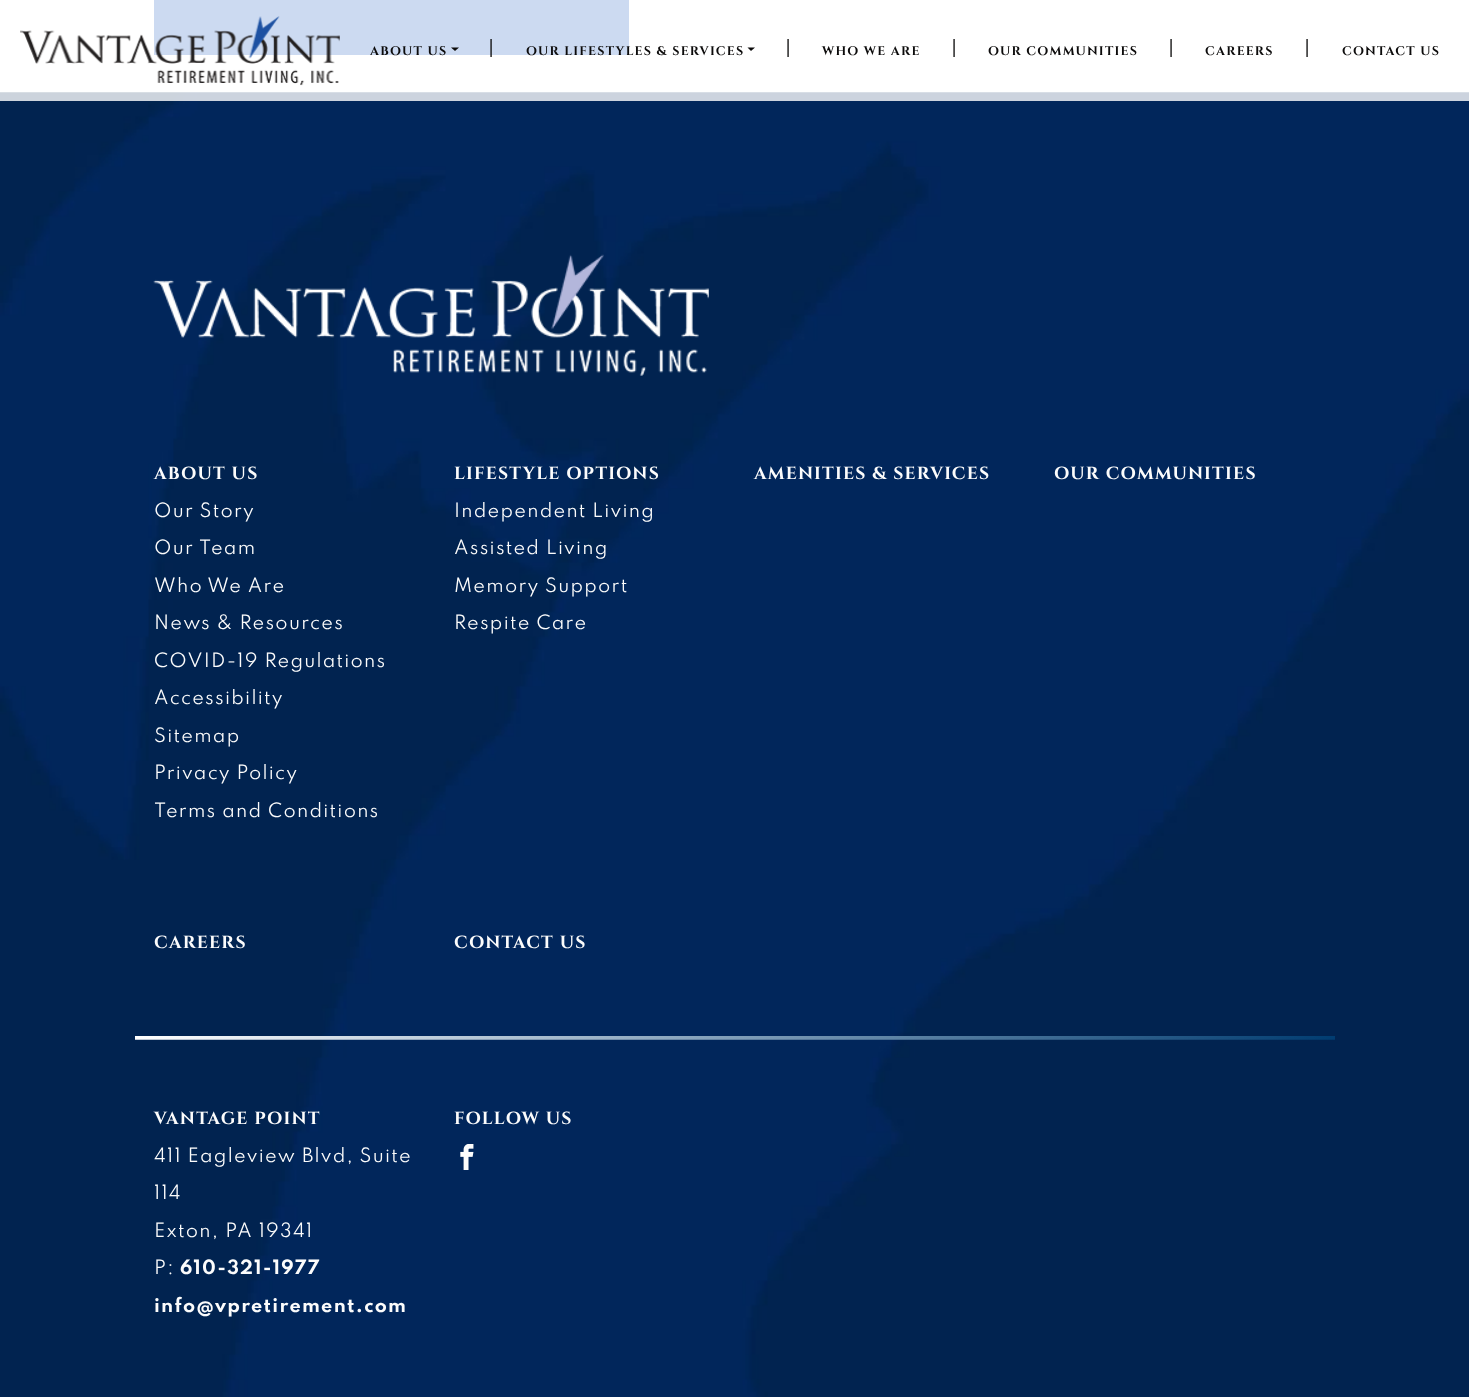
<svg xmlns="http://www.w3.org/2000/svg" width="1469" height="1397">
<rect width="100%" height="100%" fill="#fff"/>
<rect x="154" width="475" height="55" fill="#0047bb"/>
<image x="0" y="92" width="1469" height="1305" href="media/2.png"/>
<rect width="1469" height="101" fill="#ffffffcc"/>
<image x="20" y="16" width="320" height="70" href="media/1.png"/>
<text x="370" y="55" style="font-family:Cinzel;font-size:12.5px;font-weight:bold;letter-spacing:1.25px;fill:#0c0b0b">ABOUT US</text>
<path d="M451 47.5h8l-4 3.5z" fill="#0c0b0b"/>
<text x="487" y="57" style="font-family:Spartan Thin;font-size:21px;letter-spacing:1.25px;fill:#0c0b0b">|</text>
<text x="526" y="55" style="font-family:Cinzel;font-size:12.5px;font-weight:bold;letter-spacing:1.25px;fill:#0c0b0b">OUR LIFESTYLES &amp; SERVICES</text>
<path d="M747.5 47.5h7.5l-4 3.5z" fill="#0c0b0b"/>
<text x="784" y="57" style="font-family:Spartan Thin;font-size:21px;letter-spacing:1.25px;fill:#0c0b0b">|</text>
<text x="822" y="55" style="font-family:Cinzel;font-size:12.5px;font-weight:bold;letter-spacing:1.25px;fill:#0c0b0b">WHO WE ARE</text>
<text x="950" y="57" style="font-family:Spartan Thin;font-size:21px;letter-spacing:1.25px;fill:#0c0b0b">|</text>
<text x="988" y="55" style="font-family:Cinzel;font-size:12.5px;font-weight:bold;letter-spacing:1.25px;fill:#0c0b0b">OUR COMMUNITIES</text>
<text x="1167" y="57" style="font-family:Spartan Thin;font-size:21px;letter-spacing:1.25px;fill:#0c0b0b">|</text>
<text x="1205" y="55" style="font-family:Cinzel;font-size:12.5px;font-weight:bold;letter-spacing:1.25px;fill:#0c0b0b">CAREERS</text>
<text x="1303" y="57" style="font-family:Spartan Thin;font-size:21px;letter-spacing:1.25px;fill:#0c0b0b">|</text>
<text x="1342" y="55" style="font-family:Cinzel;font-size:12.5px;font-weight:bold;letter-spacing:1.25px;fill:#0c0b0b">CONTACT US</text>
<image x="153" y="254" width="556" height="122" href="media/3.png"/>
<text x="154" y="479" style="font-family:Cinzel;font-size:17.5px;font-weight:bold;letter-spacing:1.25px;fill:#fcfcfc">ABOUT US</text>
<text x="154" y="517" style="font-family:Spartan Thin;font-size:17.5px;letter-spacing:1.25px;fill:#fcfcfc">Our Story</text>
<text x="154" y="554" style="font-family:Spartan Thin;font-size:17.5px;letter-spacing:1.25px;fill:#fcfcfc">Our Team</text>
<text x="154" y="592" style="font-family:Spartan Thin;font-size:17.5px;letter-spacing:1.25px;fill:#fcfcfc">Who We Are</text>
<text x="154" y="629" style="font-family:Spartan Thin;font-size:17.5px;letter-spacing:1.25px;fill:#fcfcfc">News &amp; Resources</text>
<text x="154" y="667" style="font-family:Spartan Thin;font-size:17.5px;letter-spacing:1.25px;fill:#fcfcfc">COVID-19 Regulations</text>
<text x="154" y="704" style="font-family:Spartan Thin;font-size:17.5px;letter-spacing:1.25px;fill:#fcfcfc">Accessibility</text>
<text x="154" y="742" style="font-family:Spartan Thin;font-size:17.5px;letter-spacing:1.25px;fill:#fcfcfc">Sitemap</text>
<text x="154" y="779" style="font-family:Spartan Thin;font-size:17.5px;letter-spacing:1.25px;fill:#fcfcfc">Privacy Policy</text>
<text x="154" y="817" style="font-family:Spartan Thin;font-size:17.5px;letter-spacing:1.25px;fill:#fcfcfc">Terms and Conditions</text>
<text x="454" y="479" style="font-family:Cinzel;font-size:17.5px;font-weight:bold;letter-spacing:1.25px;fill:#fcfcfc">LIFESTYLE OPTIONS</text>
<text x="454" y="517" style="font-family:Spartan Thin;font-size:17.5px;letter-spacing:1.25px;fill:#fcfcfc">Independent Living</text>
<text x="454" y="554" style="font-family:Spartan Thin;font-size:17.5px;letter-spacing:1.25px;fill:#fcfcfc">Assisted Living</text>
<text x="454" y="592" style="font-family:Spartan Thin;font-size:17.5px;letter-spacing:1.25px;fill:#fcfcfc">Memory Support</text>
<text x="454" y="629" style="font-family:Spartan Thin;font-size:17.5px;letter-spacing:1.25px;fill:#fcfcfc">Respite Care</text>
<text x="754" y="479" style="font-family:Cinzel;font-size:17.5px;font-weight:bold;letter-spacing:1.25px;fill:#fcfcfc">AMENITIES &amp; SERVICES</text>
<text x="1054" y="479" style="font-family:Cinzel;font-size:17.5px;font-weight:bold;letter-spacing:1.25px;fill:#fcfcfc">OUR COMMUNITIES</text>
<text x="154" y="948" style="font-family:Cinzel;font-size:17.5px;font-weight:bold;letter-spacing:1.25px;fill:#fcfcfc">CAREERS</text>
<text x="454" y="948" style="font-family:Cinzel;font-size:17.5px;font-weight:bold;letter-spacing:1.25px;fill:#fcfcfc">CONTACT US</text>
<image x="135" y="1036" width="1200" height="4" href="media/4.png"/>
<text x="154" y="1124" style="font-family:Cinzel;font-size:17.5px;font-weight:bold;letter-spacing:1.25px;fill:#fcfcfc">VANTAGE POINT</text>
<text x="154" y="1162" style="font-family:Spartan Thin;font-size:17.5px;letter-spacing:1.25px;fill:#fcfcfc">411 Eagleview Blvd, Suite</text>
<text x="154" y="1199" style="font-family:Spartan Thin;font-size:17.5px;letter-spacing:1.25px;fill:#fcfcfc">114</text>
<text x="154" y="1237" style="font-family:Spartan Thin;font-size:17.5px;letter-spacing:1.25px;fill:#fcfcfc">Exton, PA 19341</text>
<text x="154" y="1274" style="font-family:Spartan Thin;font-size:17.5px;letter-spacing:1.25px;fill:#fcfcfc">P:</text>
<text x="180" y="1274" style="font-family:Spartan Thin;font-size:17.5px;font-weight:bold;letter-spacing:1.25px;fill:#fcfcfc">610-321-1977</text>
<text x="154" y="1312" style="font-family:Spartan Thin;font-size:17.5px;font-weight:bold;letter-spacing:1.25px;fill:#fcfcfc">info@vpretirement.com</text>
<text x="454" y="1124" style="font-family:Cinzel;font-size:17.5px;font-weight:bold;letter-spacing:1.25px;fill:#fcfcfc">FOLLOW US</text>
<image x="460" y="1144" width="14" height="26" href="media/5.png"/>
</svg>
